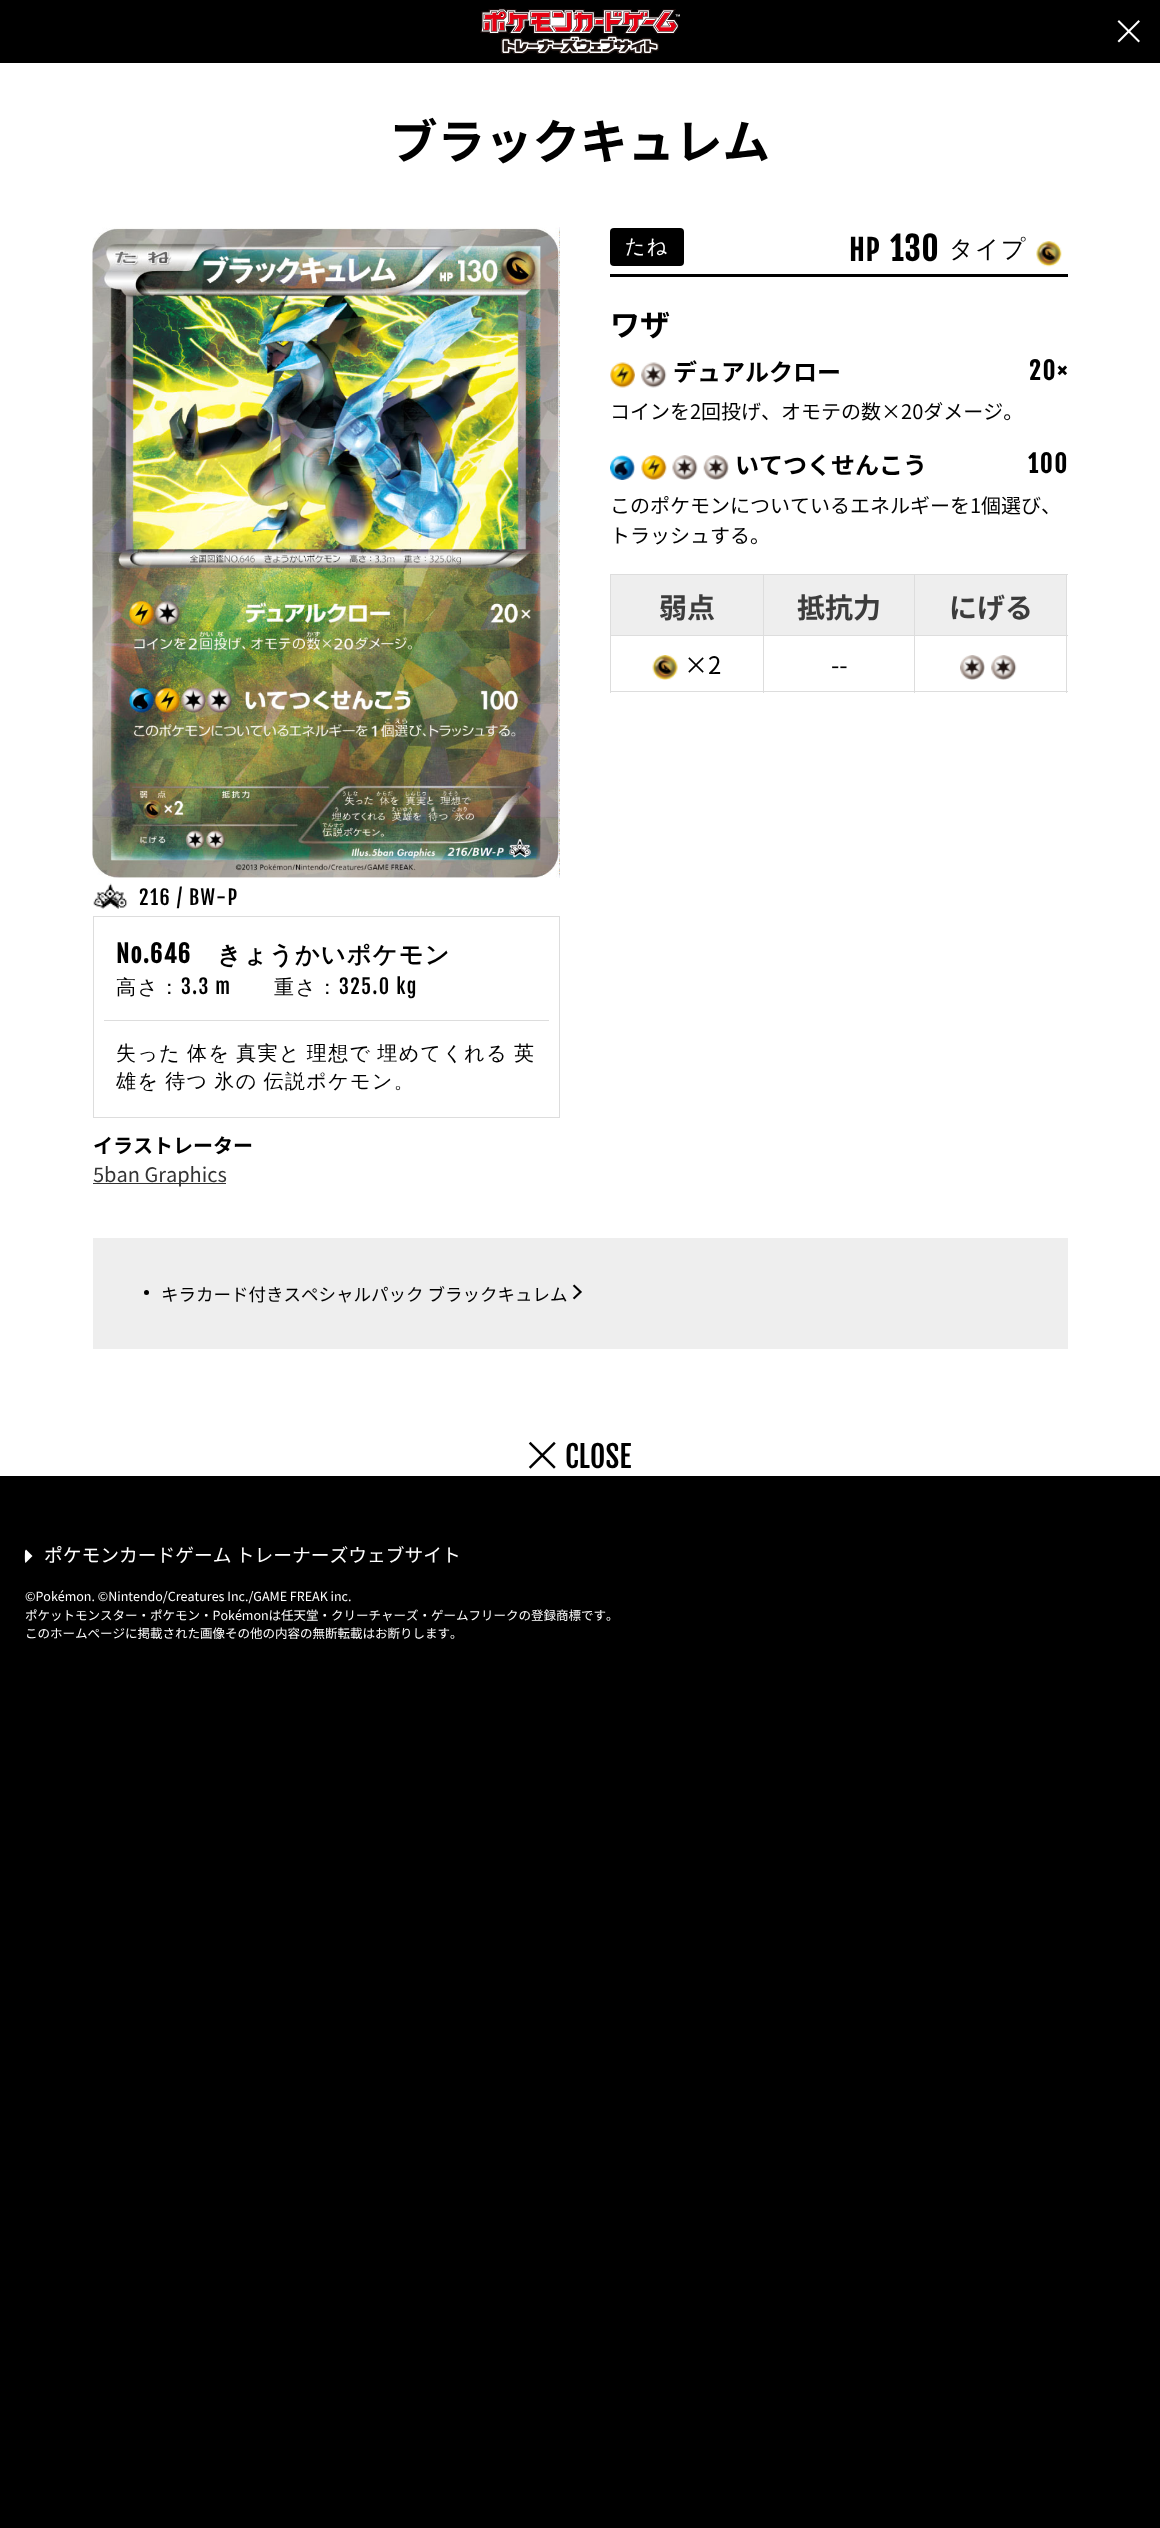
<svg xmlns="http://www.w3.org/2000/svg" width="1160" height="2528">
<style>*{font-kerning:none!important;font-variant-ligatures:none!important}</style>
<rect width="100%" height="100%" fill="#000"/>
<rect y="63" width="1160" height="1413" fill="#fff"/>
<image x="480" y="8" width="200" height="46" href="media/1.png"/>
<image x="1117" y="20" width="23" height="23" href="media/2.png"/>
<text x="390" y="159" style="font-family:Noto Sans JP;font-size:47.5px;font-weight:bold;fill:#000">ブラックキュレム</text>
<rect x="610" y="274" width="458" height="3" fill="#000"/>
<rect x="610" y="228" width="74" height="38" rx="4" fill="#000"/>
<text x="625" y="253" style="font-family:WenQuanYi Zen Hei;font-size:20px;font-weight:500;letter-spacing:1.4px;fill:#fff">たね</text>
<text x="849" y="261" style="font-family:Fjalla One;font-size:28px;font-weight:bold;letter-spacing:1.4px;fill:#000">HP</text>
<text x="890" y="261" style="font-family:Fjalla One;font-size:32px;font-weight:bold;letter-spacing:1.4px;fill:#000">130</text>
<text x="949" y="257" style="font-family:WenQuanYi Zen Hei;font-size:24px;font-weight:500;letter-spacing:1.4px;fill:#000">タイプ</text>
<image x="1036" y="241" width="26" height="26" href="media/3.png"/>
<text x="610" y="336" style="font-family:Noto Sans JP;font-size:30px;font-weight:bold;fill:#000">ワザ</text>
<image x="610" y="362" width="25" height="26" href="media/4.png"/>
<image x="641" y="362" width="26" height="26" href="media/5.png"/>
<text x="673" y="381" style="font-family:Noto Sans JP;font-size:24px;font-weight:bold;fill:#000">デュアルクロー</text>
<text x="1029" y="380" style="font-family:Fjalla One;font-size:24px;font-weight:bold;letter-spacing:2px;fill:#000">20×</text>
<text x="610" y="419" style="font-family:Noto Sans JP;font-size:20px;fill:#000">コインを2回投げ、オモテの数×20ダメージ。</text>
<image x="610" y="455" width="25" height="25" href="media/6.png"/>
<image x="641" y="455" width="26" height="25" href="media/7.png"/>
<image x="672" y="455" width="26" height="25" href="media/8.png"/>
<image x="703" y="455" width="26" height="25" href="media/9.png"/>
<text x="735" y="474" style="font-family:Noto Sans JP;font-size:24px;font-weight:bold;fill:#000">いてつくせんこう</text>
<text x="1028" y="473" style="font-family:Fjalla One;font-size:24px;font-weight:bold;letter-spacing:2px;fill:#000">100</text>
<text x="610" y="513" style="font-family:Noto Sans JP;font-size:20px;fill:#000">このポケモンについているエネルギーを1個選び、</text>
<text x="610" y="543" style="font-family:Noto Sans JP;font-size:20px;fill:#000">トラッシュする。</text>
<rect x="611" y="575" width="152" height="60" fill="#eee"/>
<rect x="914" y="574" width="154" height="1" fill="#ddd"/>
<rect x="914" y="635" width="154" height="1" fill="#ddd"/>
<rect x="1066" y="635" width="1" height="58" fill="#ddd"/>
<rect x="914" y="691" width="154" height="1" fill="#ddd"/>
<rect x="914" y="635" width="1" height="58" fill="#ddd"/>
<rect x="763" y="635" width="152" height="1" fill="#ddd"/>
<rect x="914" y="574" width="1" height="62" fill="#ddd"/>
<rect x="763" y="574" width="152" height="1" fill="#ddd"/>
<rect x="763" y="691" width="152" height="1" fill="#ddd"/>
<rect x="763" y="635" width="1" height="58" fill="#ddd"/>
<rect x="610" y="635" width="154" height="1" fill="#ddd"/>
<rect x="763" y="574" width="1" height="62" fill="#ddd"/>
<rect x="610" y="574" width="154" height="1" fill="#ddd"/>
<rect x="610" y="691" width="154" height="1" fill="#ddd"/>
<rect x="610" y="635" width="1" height="58" fill="#ddd"/>
<rect x="610" y="574" width="1" height="62" fill="#ddd"/>
<text x="659" y="618" style="font-family:Noto Sans JP;font-size:28px;font-weight:bold;fill:#3c3c3c">弱点</text>
<rect x="764" y="575" width="150" height="60" fill="#eee"/>
<text x="797" y="618" style="font-family:Noto Sans JP;font-size:28px;font-weight:bold;fill:#3c3c3c">抵抗力</text>
<rect x="915" y="575" width="151" height="60" fill="#eee"/>
<rect x="1066" y="574" width="1" height="62" fill="#ddd"/>
<text x="949" y="618" style="font-family:Noto Sans JP;font-size:28px;font-weight:bold;fill:#3c3c3c">にげる</text>
<image x="652" y="655" width="26" height="25" href="media/10.png"/>
<text x="684" y="674" style="font-family:Noto Sans JP;font-size:24px;fill:#000">×2</text>
<text x="831" y="674" style="font-family:Noto Sans JP;font-size:24px;fill:#000">--</text>
<image x="960" y="655" width="25" height="25" href="media/11.png"/>
<image x="991" y="655" width="26" height="25" href="media/12.png"/>
<image x="92" y="227" width="468" height="651" href="media/13.png"/>
<image x="93" y="883" width="35" height="26" href="media/14.png"/>
<text x="139" y="905" style="font-family:Fjalla One;font-size:20px;letter-spacing:1.4px;fill:#000">216 / BW-P</text>
<rect x="93.5" y="916.5" width="466" height="201" fill="none" stroke="#ddd"/>
<text x="116" y="963" style="font-family:Fjalla One;font-size:24px;font-weight:bold;letter-spacing:1.4px;fill:#000">No.646</text>
<text x="217" y="963" style="font-family:WenQuanYi Zen Hei;font-size:24px;font-weight:bold;letter-spacing:1.4px;fill:#000">きょうかいポケモン</text>
<text x="116" y="994" style="font-family:WenQuanYi Zen Hei;font-size:20px;font-weight:500;letter-spacing:1.4px;fill:#000">高さ：</text>
<text x="181" y="994" style="font-family:Fjalla One;font-size:20px;letter-spacing:1.4px;fill:#000">3.3 m</text>
<text x="274" y="994" style="font-family:WenQuanYi Zen Hei;font-size:20px;font-weight:500;letter-spacing:1.4px;fill:#000">重さ：</text>
<text x="339" y="994" style="font-family:Fjalla One;font-size:20px;letter-spacing:1.4px;fill:#000">325.0 kg</text>
<rect x="104" y="1020" width="445" height="1" fill="#ddd"/>
<text x="116" y="1060" word-spacing="-1.5" style="font-family:WenQuanYi Zen Hei;font-size:20px;font-weight:500;letter-spacing:1.4px;fill:#000">失った 体を 真実と 理想で 埋めてくれる 英</text>
<text x="116" y="1088" word-spacing="-1.5" style="font-family:WenQuanYi Zen Hei;font-size:20px;font-weight:500;letter-spacing:1.4px;fill:#000">雄を 待つ 氷の 伝説ポケモン。</text>
<text x="93" y="1153" style="font-family:Noto Sans JP;font-size:20px;font-weight:bold;fill:#000">イラストレーター</text>
<rect x="93" y="1183" width="133" height="1" fill="#333"/>
<text x="93" y="1182" style="font-family:Noto Sans JP;font-size:20px;fill:#333">5ban Graphics</text>
<rect x="93" y="1238" width="975" height="111" fill="#eee"/>
<circle cx="146.5" cy="1292.5" r="2.5" fill="#000"/>
<text x="161" y="1301" style="font-family:Noto Sans JP;font-size:17.5px;fill:#000">キラカード付きスペシャルパック ブラックキュレム</text>
<image x="572" y="1284" width="10" height="16" href="media/15.png"/>
<image x="528" y="1441" width="28" height="28" href="media/16.png"/>
<text x="565" y="1468" style="font-family:Fjalla One;font-size:30px;fill:#000">CLOSE</text>
<path d="M26 1549.5l6.5 6.5l-7 7c-1-2-.5-9.5-.5-12z" fill="#fff"/>
<text x="44" y="1562" style="font-family:Noto Sans JP;font-size:18.75px;fill:#fff">ポケモンカードゲーム トレーナーズウェブサイト</text>
<text x="25" y="1601" style="font-family:Noto Sans JP;font-size:12.5px;fill:#fff">©Pokémon. ©Nintendo/Creatures Inc./GAME FREAK inc.</text>
<text x="25" y="1620" style="font-family:Noto Sans JP;font-size:12.5px;fill:#fff">ポケットモンスター・ポケモン・Pokémonは任天堂・クリーチャーズ・ゲームフリークの登録商標です</text>
<text x="606" y="1620" style="font-family:Noto Sans JP;font-size:12.5px;fill:#fff">。</text>
<text x="25" y="1638" style="font-family:Noto Sans JP;font-size:12.5px;fill:#fff">このホームページに掲載された画像その他の内容の無断転載はお断りします。</text>
</svg>
